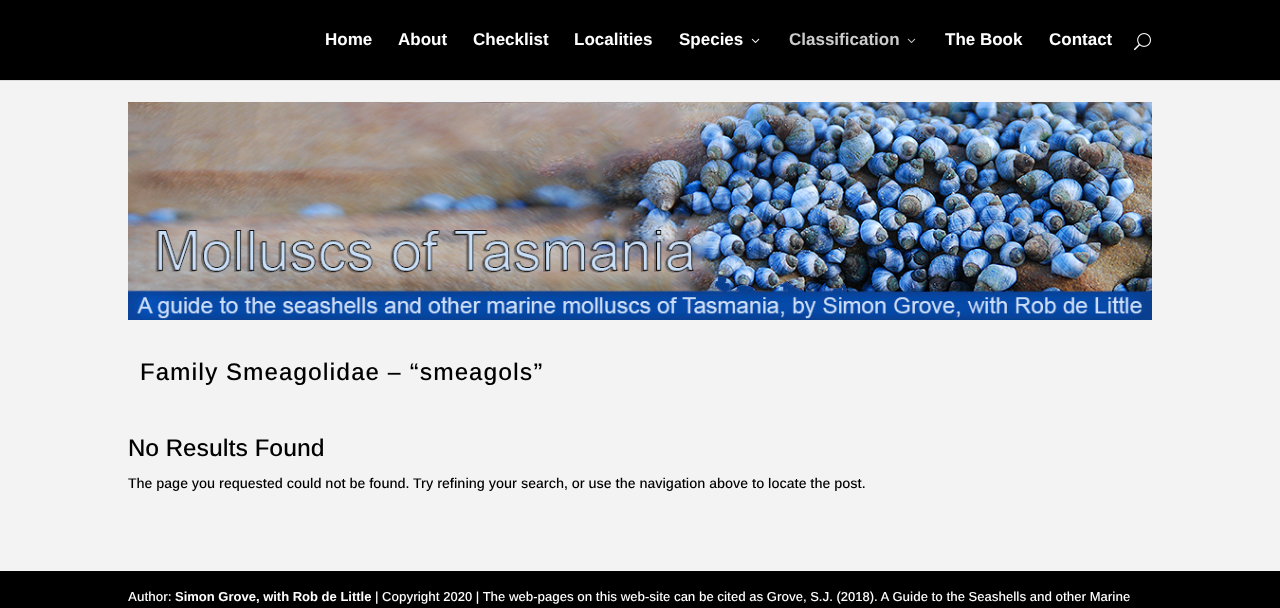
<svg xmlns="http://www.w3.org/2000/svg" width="1280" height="608">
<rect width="100%" height="100%" fill="#000"/>
<rect y="80" width="1280" height="1" fill="#dbdbdb"/>
<text x="325" y="45" style="font-family:Arimo;font-size:17px;font-weight:bold;fill:#fff">Home</text>
<text x="398" y="45" style="font-family:Arimo;font-size:17px;font-weight:bold;fill:#fff">About</text>
<text x="473" y="45" style="font-family:Arimo;font-size:17px;font-weight:bold;fill:#fff">Checklist</text>
<text x="574" y="45" style="font-family:Arimo;font-size:17px;font-weight:bold;fill:#fff">Localities</text>
<text x="679" y="45" style="font-family:Arimo;font-size:17px;font-weight:bold;fill:#fff">Species</text>
<image x="751" y="38" width="9" height="5" href="media/1.png"/>
<text x="789" y="45" style="font-family:Arimo;font-size:17px;font-weight:bold;fill:#ccc">Classification</text>
<image x="907" y="38" width="9" height="5" href="media/2.png"/>
<text x="945" y="45" style="font-family:Arimo;font-size:17px;font-weight:bold;fill:#fff">The Book</text>
<text x="1049" y="45" style="font-family:Arimo;font-size:17px;font-weight:bold;fill:#fff">Contact</text>
<image x="1134" y="33" width="17" height="18" href="media/3.png"/>
<rect y="81" width="1280" height="490" fill="#f3f3f3"/>
<image x="128" y="102" width="1024" height="218" href="media/4.png"/>
<text x="140" y="380" style="font-family:Arimo;font-size:24px;font-weight:500;letter-spacing:1px;fill:#000">Family Smeagolidae – “smeagols”</text>
<text x="128" y="456" style="font-family:Arimo;font-size:24px;font-weight:500;fill:#000">No Results Found</text>
<text x="128" y="488" style="font-family:Arimo;font-size:14px;font-weight:500;fill:#000">The page you requested could not be found. Try refining your search, or use the navigation above to locate the post.</text>
<text x="128" y="601" style="font-family:Arimo;font-size:13px;font-weight:500;fill:#fff">Author:</text>
<text x="175" y="601" style="font-family:Arimo;font-size:13px;font-weight:bold;fill:#fff">Simon Grove, with Rob de Little</text>
<text x="375" y="601" style="font-family:Arimo;font-size:13px;font-weight:500;fill:#fff">| Copyright 2020 | The web-pages on this web-site can be cited as Grove, S.J. (2018). A Guide to the Seashells and other Marine</text>
</svg>
